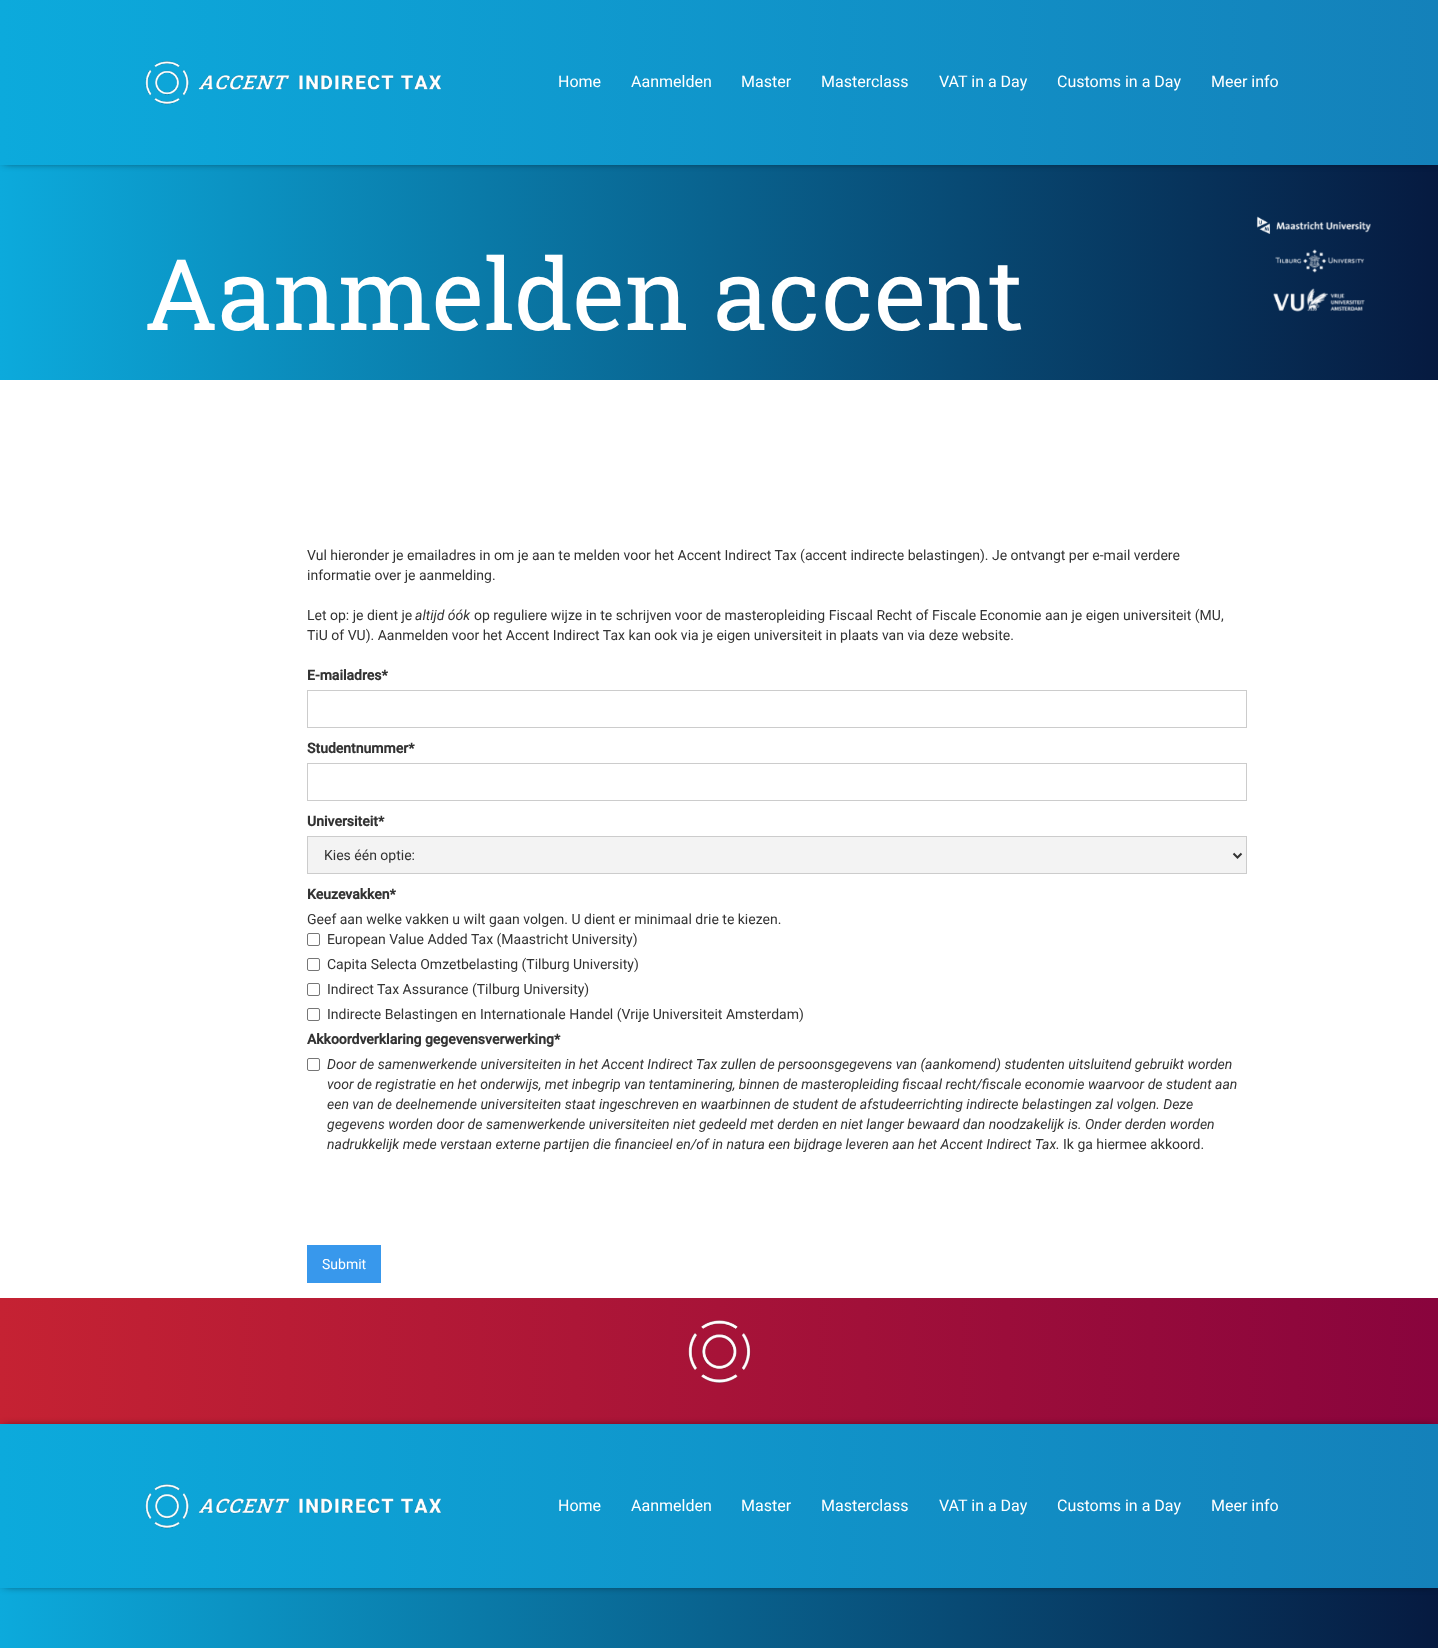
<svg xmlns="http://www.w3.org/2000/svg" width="1438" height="1648">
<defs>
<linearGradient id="g1" gradientUnits="userSpaceOnUse" x1="0" y1="824" x2="1438" y2="824"><stop offset="0" stop-color="#0caadc"/><stop offset="1" stop-color="#061a40"/></linearGradient>
<linearGradient id="g2" gradientUnits="userSpaceOnUse" x1="1438" y1="82" x2="0" y2="83"><stop offset="0" stop-color="#1481ba"/><stop offset="1" stop-color="#0caadc"/></linearGradient>
<linearGradient id="g3" gradientUnits="userSpaceOnUse" x1="0" y1="1361" x2="1438" y2="1361"><stop offset="0" stop-color="#c52233"/><stop offset="1" stop-color="#89043d"/></linearGradient>
<linearGradient id="g4" gradientUnits="userSpaceOnUse" x1="1438" y1="1506" x2="0" y2="1506"><stop offset="0" stop-color="#1481ba"/><stop offset="1" stop-color="#0caadc"/></linearGradient>
</defs>
<rect width="100%" height="100%" fill="#fff"/>
<rect y="165" width="1438" height="1483" fill="url(#g1)"/>
<rect x="4" y="4" width="1430" height="157" fill="#000" filter="blur(5px)"/>
<rect width="1438" height="165" fill="url(#g2)"/>
<image x="145" y="61" width="296" height="44" href="media/1.png"/>
<text x="558" y="87" style="font-family:Roboto;font-size:16px;fill:#fff">Home</text>
<text x="631" y="87" style="font-family:Roboto;font-size:16px;fill:#fff">Aanmelden</text>
<text x="741" y="87" style="font-family:Roboto;font-size:16px;fill:#fff">Master</text>
<text x="821" y="87" style="font-family:Roboto;font-size:16px;fill:#fff">Masterclass</text>
<text x="939" y="87" style="font-family:Roboto;font-size:16px;fill:#fff">VAT in a Day</text>
<text x="1057" y="87" style="font-family:Roboto;font-size:16px;fill:#fff">Customs in a Day</text>
<text x="1211" y="87" style="font-family:Roboto;font-size:16px;fill:#fff">Meer info</text>
<text x="144" y="330" style="font-family:Roboto Slab;font-size:98.9px;fill:#fff">Aanmelden accent</text>
<image x="1256" y="216" width="115" height="96" href="media/2.png"/>
<rect y="380" width="1438" height="918" fill="#fff"/>
<text x="307" y="560" style="font-family:Roboto;font-size:14px;fill:#333">Vul hieronder je emailadres in om je aan te melden voor het Accent Indirect Tax (accent indirecte belastingen). Je ontvangt per e-mail verdere</text>
<text x="307" y="580" style="font-family:Roboto;font-size:14px;fill:#333">informatie over je aanmelding.</text>
<text x="307" y="620" style="font-family:Roboto;font-size:14px;fill:#333">Let op: je dient je</text>
<text x="415" y="620" style="font-family:Roboto;font-size:14px;font-style:italic;fill:#333">altijd óók</text>
<text x="474" y="620" style="font-family:Roboto;font-size:14px;fill:#333">op reguliere wijze in te schrijven voor de masteropleiding Fiscaal Recht of Fiscale Economie aan je eigen universiteit (MU,</text>
<text x="307" y="640" style="font-family:Roboto;font-size:14px;fill:#333">TiU of VU). Aanmelden voor het Accent Indirect Tax kan ook via je eigen universiteit in plaats van via deze website.</text>
<text x="307" y="680" style="font-family:Roboto;font-size:14px;font-weight:bold;fill:#333">E-mailadres*</text>
<rect x="307.5" y="690.5" width="939" height="37" fill="none" stroke="#ccc"/>
<text x="307" y="753" style="font-family:Roboto;font-size:14px;font-weight:bold;fill:#333">Studentnummer*</text>
<rect x="307.5" y="763.5" width="939" height="37" fill="none" stroke="#ccc"/>
<text x="307" y="826" style="font-family:Roboto;font-size:14px;font-weight:bold;fill:#333">Universiteit*</text>
<rect x="307.5" y="836.5" width="939" height="37" fill="#f3f3f3" stroke="#ccc"/>
<path d="M1233.5 853.5l4 4l4-4" fill="none" stroke="#333" stroke-width="2"/>
<text x="324" y="860" style="font-family:Roboto;font-size:14px;fill:#333">Kies één optie:</text>
<text x="307" y="899" style="font-family:Roboto;font-size:14px;font-weight:bold;fill:#333">Keuzevakken*</text>
<text x="307" y="924" style="font-family:Roboto;font-size:14px;fill:#333">Geef aan welke vakken u wilt gaan volgen. U dient er minimaal drie te kiezen.</text>
<rect x="307.5" y="933.5" width="12" height="12" rx="1.5" fill="none" stroke="#767676"/>
<text x="327" y="944" style="font-family:Roboto;font-size:14px;fill:#333">European Value Added Tax (Maastricht University)</text>
<rect x="307.5" y="958.5" width="12" height="12" rx="1.5" fill="none" stroke="#767676"/>
<text x="327" y="969" style="font-family:Roboto;font-size:14px;fill:#333">Capita Selecta Omzetbelasting (Tilburg University)</text>
<rect x="307.5" y="983.5" width="12" height="12" rx="1.5" fill="none" stroke="#767676"/>
<text x="327" y="994" style="font-family:Roboto;font-size:14px;fill:#333">Indirect Tax Assurance (Tilburg University)</text>
<rect x="307.5" y="1008.5" width="12" height="12" rx="1.5" fill="none" stroke="#767676"/>
<text x="327" y="1019" style="font-family:Roboto;font-size:14px;fill:#333">Indirecte Belastingen en Internationale Handel (Vrije Universiteit Amsterdam)</text>
<text x="307" y="1044" style="font-family:Roboto;font-size:14px;font-weight:bold;fill:#333">Akkoordverklaring gegevensverwerking*</text>
<rect x="307.5" y="1058.5" width="12" height="12" rx="1.5" fill="none" stroke="#767676"/>
<text x="327" y="1069" style="font-family:Roboto;font-size:14px;font-style:italic;fill:#333">Door de samenwerkende universiteiten in het Accent Indirect Tax zullen de persoonsgegevens van (aankomend) studenten uitsluitend gebruikt worden</text>
<text x="327" y="1089" style="font-family:Roboto;font-size:14px;font-style:italic;fill:#333">voor de registratie en het onderwijs, met inbegrip van tentaminering, binnen de masteropleiding fiscaal recht/fiscale economie waarvoor de student aan</text>
<text x="327" y="1109" style="font-family:Roboto;font-size:14px;font-style:italic;fill:#333">een van de deelnemende universiteiten staat ingeschreven en waarbinnen de student de afstudeerrichting indirecte belastingen zal volgen. Deze</text>
<text x="327" y="1129" style="font-family:Roboto;font-size:14px;font-style:italic;fill:#333">gegevens worden door de samenwerkende universiteiten niet gedeeld met derden en niet langer bewaard dan noodzakelijk is. Onder derden worden</text>
<text x="327" y="1149" style="font-family:Roboto;font-size:14px;font-style:italic;fill:#333">nadrukkelijk mede verstaan externe partijen die financieel en/of in natura een bijdrage leveren aan het Accent Indirect Tax.</text>
<text x="1063" y="1149" style="font-family:Roboto;font-size:14px;fill:#333">Ik ga hiermee akkoord.</text>
<rect x="307" y="1245" width="74" height="38" fill="#3898ec"/>
<text x="322" y="1269" style="font-family:Roboto;font-size:14px;fill:#fff">Submit</text>
<rect y="1298" width="1438" height="126" fill="url(#g3)"/>
<image x="688" y="1320" width="63" height="64" href="media/3.png"/>
<rect x="4" y="1428" width="1430" height="156" fill="#000" filter="blur(5px)"/>
<rect y="1424" width="1438" height="164" fill="url(#g4)"/>
<image x="145" y="1484" width="296" height="45" href="media/4.png"/>
<text x="558" y="1511" style="font-family:Roboto;font-size:16px;fill:#fff">Home</text>
<text x="631" y="1511" style="font-family:Roboto;font-size:16px;fill:#fff">Aanmelden</text>
<text x="741" y="1511" style="font-family:Roboto;font-size:16px;fill:#fff">Master</text>
<text x="821" y="1511" style="font-family:Roboto;font-size:16px;fill:#fff">Masterclass</text>
<text x="939" y="1511" style="font-family:Roboto;font-size:16px;fill:#fff">VAT in a Day</text>
<text x="1057" y="1511" style="font-family:Roboto;font-size:16px;fill:#fff">Customs in a Day</text>
<text x="1211" y="1511" style="font-family:Roboto;font-size:16px;fill:#fff">Meer info</text>
</svg>
